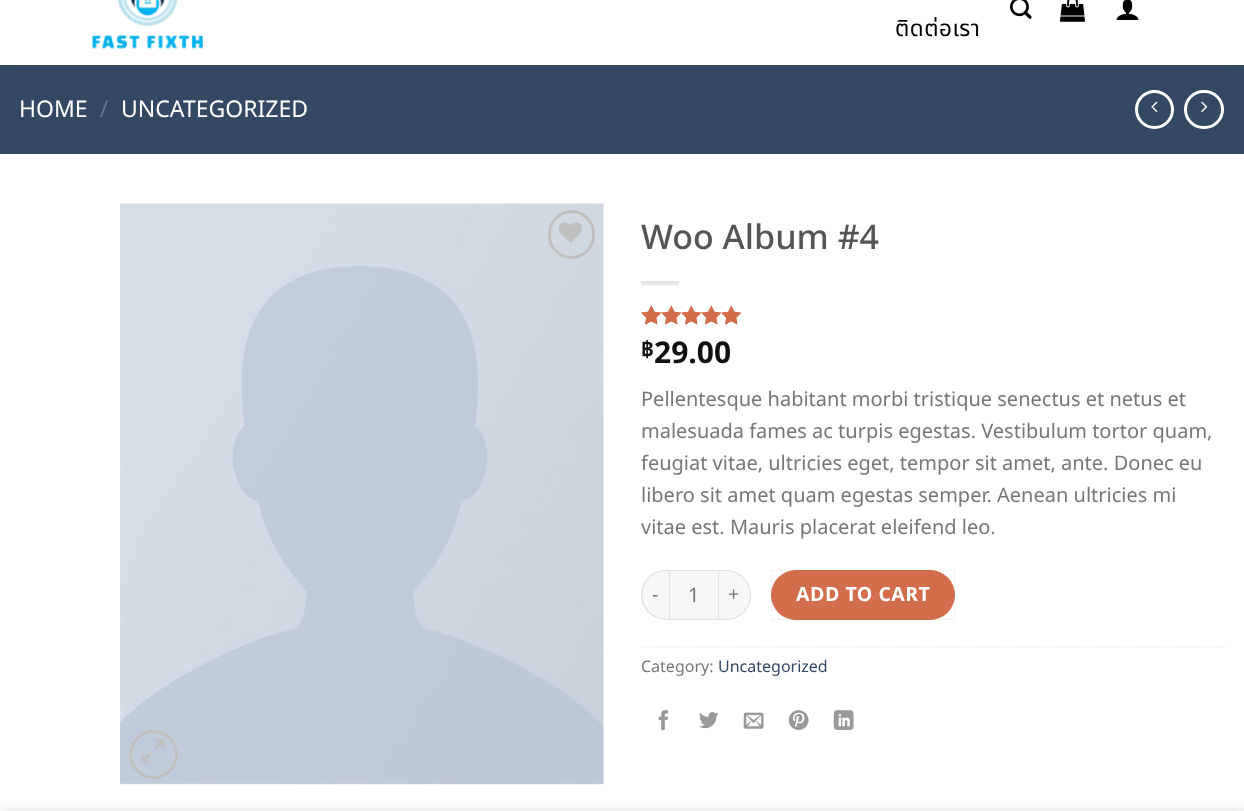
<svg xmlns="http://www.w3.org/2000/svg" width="1244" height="811">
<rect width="100%" height="100%" fill="#fff"/>
<image x="92" y="0" width="111" height="49" href="media/1.png"/>
<image x="1010" y="0" width="22" height="19" href="media/2.png"/>
<image x="1060" y="0" width="25" height="22" href="media/3.png"/>
<image x="1116" y="0" width="23" height="20" href="media/4.png"/>
<text x="895" y="36" style="font-family:Noto Sans Thai;font-size:22.5px;letter-spacing:0.5px;fill:#000">ติดต่อเรา</text>
<rect y="65" width="1244" height="89" fill="#334863"/>
<rect x="19" y="65" width="1207" height="1" fill="#3a4d65"/>
<text x="19" y="117" style="font-family:Noto Sans Thai;font-size:23px;fill:#fff">HOME</text>
<text x="100" y="117" style="font-family:Noto Sans Thai;font-size:23px;font-weight:300;fill:#7a889a">/</text>
<text x="121" y="117" style="font-family:Noto Sans Thai;font-size:23px;fill:#fff">UNCATEGORIZED</text>
<circle cx="1154.5" cy="109.5" r="18" fill="none" stroke="#fff" stroke-width="3"/>
<image x="1151" y="101" width="7" height="11" href="media/5.png"/>
<rect x="1185.5" y="91.5" width="37" height="36" rx="18" fill="none" stroke="#fff" stroke-width="3"/>
<image x="1201" y="101" width="7" height="11" href="media/6.png"/>
<image x="120" y="203" width="484" height="582" href="media/7.png"/>
<rect x="549.5" y="211.5" width="44" height="46" rx="22" fill="none" stroke="#c0c0c0" stroke-width="3"/>
<image x="558" y="222" width="24" height="21" href="media/8.png"/>
<circle cx="153.5" cy="754.5" r="23" fill="none" stroke="#c0c0c0" stroke-width="3"/>
<image x="141" y="739" width="24" height="24" href="media/9.png"/>
<text x="641" y="249" style="font-family:Noto Sans Thai;font-size:34px;font-weight:500;fill:#555">Woo Album #4</text>
<rect x="641" y="281" width="38" height="4" fill="#e6e6e6"/>
<image x="641" y="305" width="101" height="20" href="media/10.png"/>
<image x="641" y="305" width="101" height="20" href="media/11.png"/>
<image x="641" y="305" width="13" height="20" href="media/12.png"/>
<text x="641" y="357" style="font-family:Noto Sans Thai;font-size:22.5px;font-weight:bold;fill:#111">฿</text>
<text x="654" y="363" style="font-family:Noto Sans Thai;font-size:30px;font-weight:bold;fill:#111">29.00</text>
<text x="641" y="406" style="font-family:Noto Sans Thai;font-size:20px;fill:#777">Pellentesque habitant morbi tristique senectus et netus et</text>
<text x="641" y="438" style="font-family:Noto Sans Thai;font-size:20px;fill:#777">malesuada fames ac turpis egestas. Vestibulum tortor quam,</text>
<text x="641" y="470" style="font-family:Noto Sans Thai;font-size:20px;fill:#777">feugiat vitae, ultricies eget, tempor sit amet, ante. Donec eu</text>
<text x="641" y="502" style="font-family:Noto Sans Thai;font-size:20px;fill:#777">libero sit amet quam egestas semper. Aenean ultricies mi</text>
<text x="641" y="534" style="font-family:Noto Sans Thai;font-size:20px;fill:#777">vitae est. Mauris placerat eleifend leo.</text>
<path d="M666 570h3v50h-3c-14 0-25-11-25-25c0-14 11-25 25-25z" fill="#f7f7f7"/>
<path d="M666 570h3v50c-38 0-35-50-3-50zm0 1h3v48c-36 0-33-48-3-48z" fill="#00000017" fill-rule="evenodd"/>
<text x="652" y="601" style="font-family:Noto Sans Thai;font-size:19.5px;letter-spacing:0.5px;fill:#777">-</text>
<rect x="669.5" y="570.5" width="49" height="49" fill="#f7f7f7" stroke="#e1e1e1"/>
<text x="688" y="602" style="font-family:Noto Sans Thai;font-size:20px;fill:#777">1</text>
<path d="M719 570h7c14 0 25 11 25 25c0 14-11 25-25 25h-7z" fill="#f7f7f7"/>
<path d="M719 570h7c14 0 25 11 25 25c0 14-11 25-25 25h-7zm0 1h7c13 0 24 11 24 24c0 13-11 24-24 24h-7z" fill="#00000017" fill-rule="evenodd"/>
<text x="728" y="601" style="font-family:Noto Sans Thai;font-size:19.5px;letter-spacing:0.5px;fill:#777">+</text>
<rect x="771" y="570" width="184" height="50" rx="25" fill="#d26e4b"/>
<rect x="771.5" y="570.5" width="183" height="49" fill="none" stroke="#0000000d"/>
<text x="796" y="601" style="font-family:Noto Sans Thai;font-size:19.5px;font-weight:bold;letter-spacing:0.5px;fill:#fff">ADD TO CART</text>
<path d="M641 647h585" fill="none" stroke="#ddd" stroke-width="1.2" stroke-dasharray="1.25 1.25"/>
<text x="641" y="672" style="font-family:Noto Sans Thai;font-size:16px;fill:#777">Category:</text>
<text x="718" y="672" style="font-family:Noto Sans Thai;font-size:16px;fill:#334862">Uncategorized</text>
<image x="658" y="710" width="10" height="20" href="media/13.png"/>
<image x="699" y="712" width="20" height="17" href="media/14.png"/>
<image x="743" y="712" width="21" height="17" href="media/15.png"/>
<image x="788" y="710" width="21" height="20" href="media/16.png"/>
<image x="833" y="710" width="21" height="20" href="media/17.png"/>
<rect y="811" width="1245" height="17" fill="#00000024" filter="blur(5.5px)"/>
</svg>
